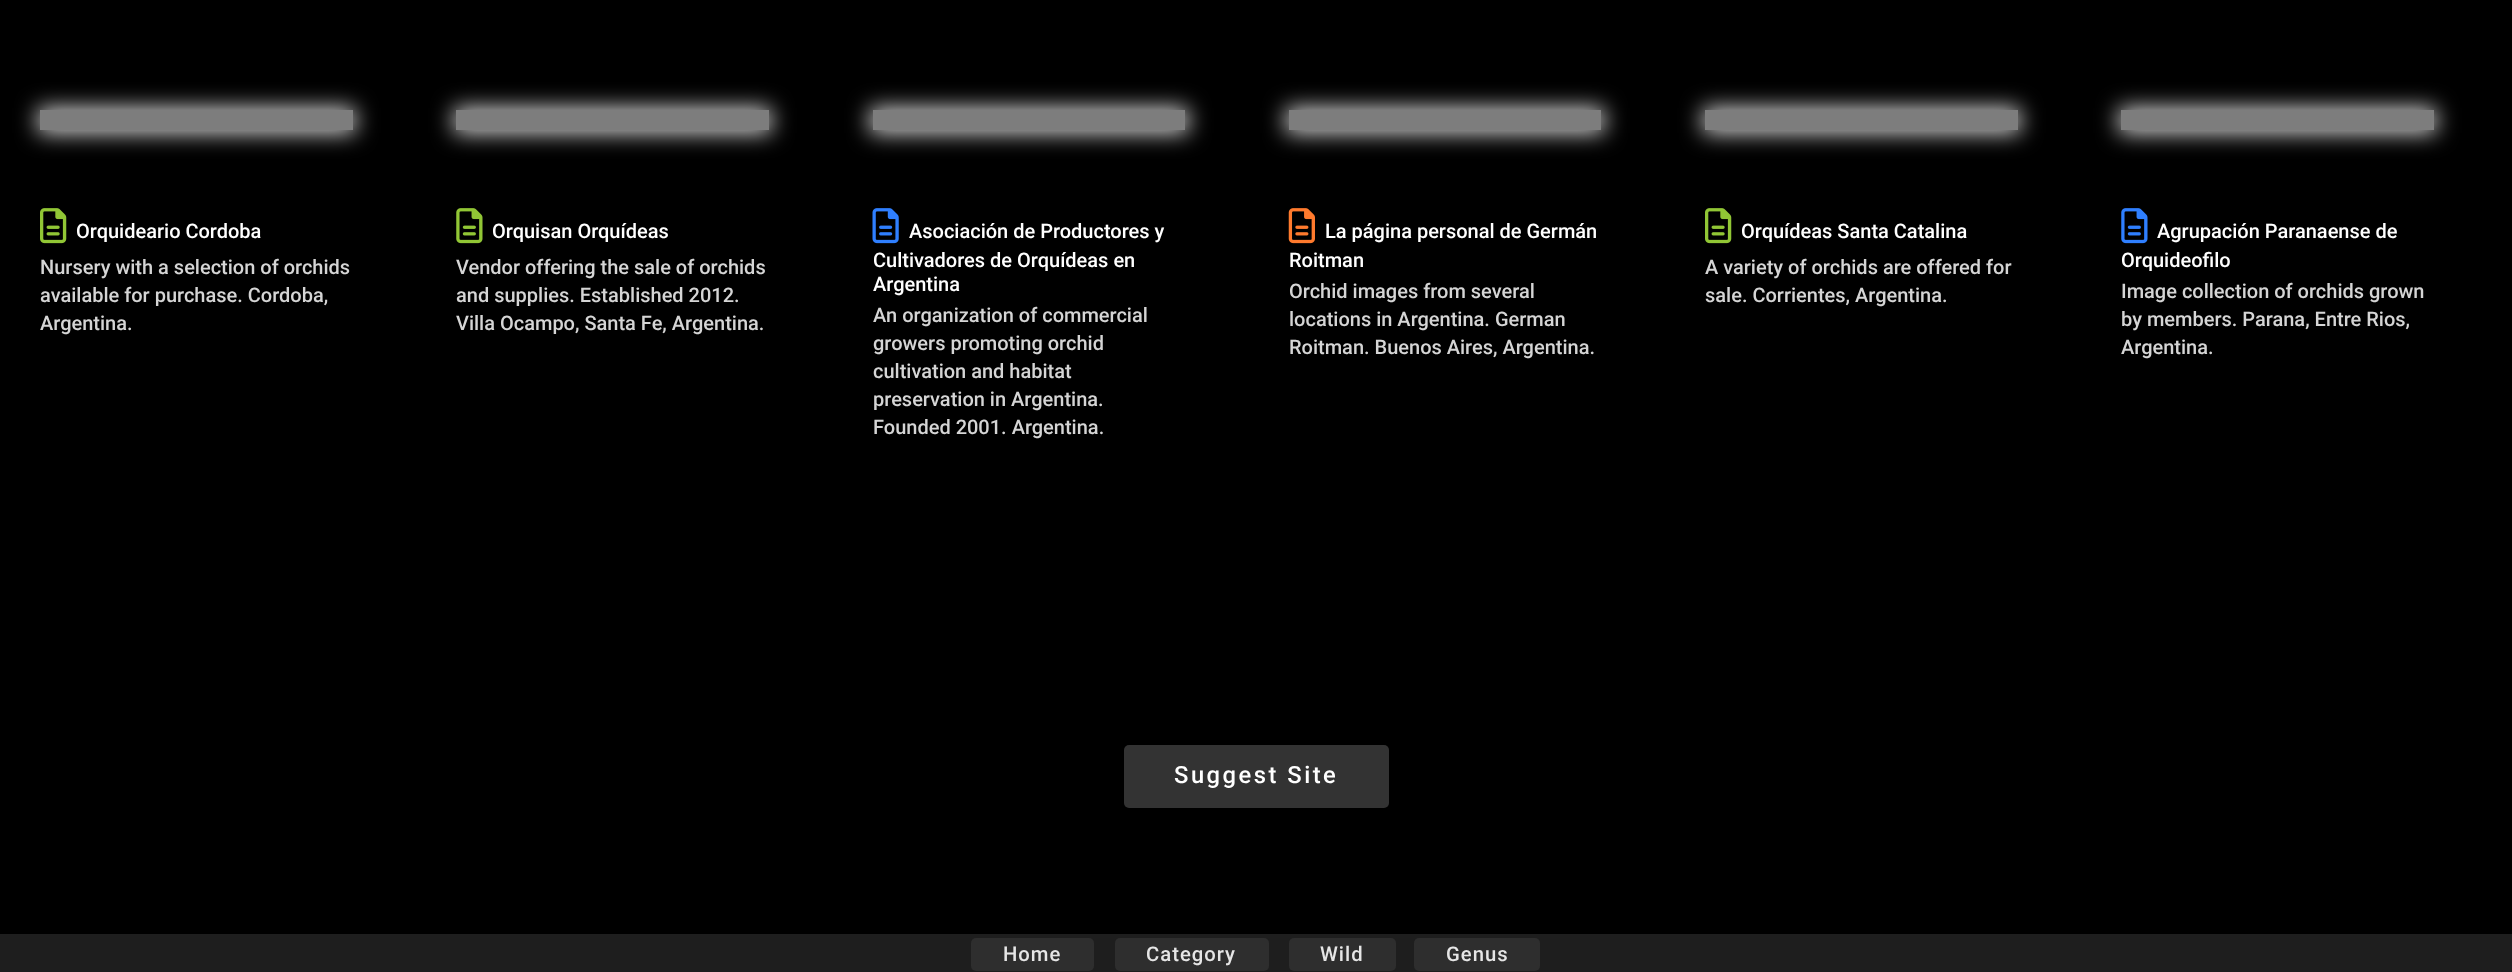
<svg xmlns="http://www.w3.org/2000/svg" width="2512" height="972">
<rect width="100%" height="100%" fill="#000"/>
<rect x="38" y="108" width="317" height="25" fill="#dcdcdc" filter="blur(11px)"/>
<rect x="40" y="110" width="313" height="20" fill="#7d7d7d"/>
<image x="40" y="208" width="27" height="36" href="media/1.png"/>
<text x="76" y="238" style="font-family:Roboto;font-size:20px;font-weight:500;fill:#fff">Orquideario Cordoba</text>
<text x="40" y="274" style="font-family:Roboto;font-size:20px;font-weight:500;fill:#d5d5d5">Nursery with a selection of orchids</text>
<text x="40" y="302" style="font-family:Roboto;font-size:20px;font-weight:500;fill:#d5d5d5">available for purchase. Cordoba,</text>
<text x="40" y="330" style="font-family:Roboto;font-size:20px;font-weight:500;fill:#d5d5d5">Argentina.</text>
<rect x="454" y="108" width="317" height="25" fill="#dcdcdc" filter="blur(11px)"/>
<rect x="456" y="110" width="313" height="20" fill="#7d7d7d"/>
<image x="456" y="208" width="27" height="36" href="media/2.png"/>
<text x="492" y="238" style="font-family:Roboto;font-size:20px;font-weight:500;fill:#fff">Orquisan Orquídeas</text>
<text x="456" y="274" style="font-family:Roboto;font-size:20px;font-weight:500;fill:#d5d5d5">Vendor offering the sale of orchids</text>
<text x="456" y="302" style="font-family:Roboto;font-size:20px;font-weight:500;fill:#d5d5d5">and supplies. Established 2012.</text>
<text x="456" y="330" style="font-family:Roboto;font-size:20px;font-weight:500;fill:#d5d5d5">Villa Ocampo, Santa Fe, Argentina.</text>
<rect x="870" y="108" width="318" height="25" fill="#dcdcdc" filter="blur(11px)"/>
<rect x="873" y="110" width="312" height="20" fill="#7d7d7d"/>
<image x="872" y="208" width="27" height="36" href="media/3.png"/>
<text x="909" y="238" style="font-family:Roboto;font-size:20px;font-weight:500;fill:#fff">Asociación de Productores y</text>
<text x="873" y="267" style="font-family:Roboto;font-size:20px;font-weight:500;fill:#fff">Cultivadores de Orquídeas en</text>
<text x="873" y="291" style="font-family:Roboto;font-size:20px;font-weight:500;fill:#fff">Argentina</text>
<text x="873" y="322" style="font-family:Roboto;font-size:20px;font-weight:500;fill:#d5d5d5">An organization of commercial</text>
<text x="873" y="350" style="font-family:Roboto;font-size:20px;font-weight:500;fill:#d5d5d5">growers promoting orchid</text>
<text x="873" y="378" style="font-family:Roboto;font-size:20px;font-weight:500;fill:#d5d5d5">cultivation and habitat</text>
<text x="873" y="406" style="font-family:Roboto;font-size:20px;font-weight:500;fill:#d5d5d5">preservation in Argentina.</text>
<text x="873" y="434" style="font-family:Roboto;font-size:20px;font-weight:500;fill:#d5d5d5">Founded 2001. Argentina.</text>
<rect x="1286" y="108" width="318" height="25" fill="#dcdcdc" filter="blur(11px)"/>
<rect x="1289" y="110" width="312" height="20" fill="#7d7d7d"/>
<image x="1288" y="208" width="27" height="36" href="media/4.png"/>
<text x="1325" y="238" style="font-family:Roboto;font-size:20px;font-weight:500;fill:#fff">La página personal de Germán</text>
<text x="1289" y="267" style="font-family:Roboto;font-size:20px;font-weight:500;fill:#fff">Roitman</text>
<text x="1289" y="298" style="font-family:Roboto;font-size:20px;font-weight:500;fill:#d5d5d5">Orchid images from several</text>
<text x="1289" y="326" style="font-family:Roboto;font-size:20px;font-weight:500;fill:#d5d5d5">locations in Argentina. German</text>
<text x="1289" y="354" style="font-family:Roboto;font-size:20px;font-weight:500;fill:#d5d5d5">Roitman. Buenos Aires, Argentina.</text>
<rect x="1703" y="108" width="317" height="25" fill="#dcdcdc" filter="blur(11px)"/>
<rect x="1705" y="110" width="313" height="20" fill="#7d7d7d"/>
<image x="1705" y="208" width="27" height="36" href="media/1.png"/>
<text x="1741" y="238" style="font-family:Roboto;font-size:20px;font-weight:500;fill:#fff">Orquídeas Santa Catalina</text>
<text x="1705" y="274" style="font-family:Roboto;font-size:20px;font-weight:500;fill:#d5d5d5">A variety of orchids are offered for</text>
<text x="1705" y="302" style="font-family:Roboto;font-size:20px;font-weight:500;fill:#d5d5d5">sale. Corrientes, Argentina.</text>
<rect x="2119" y="108" width="317" height="25" fill="#dcdcdc" filter="blur(11px)"/>
<rect x="2121" y="110" width="313" height="20" fill="#7d7d7d"/>
<image x="2121" y="208" width="27" height="36" href="media/5.png"/>
<text x="2157" y="238" style="font-family:Roboto;font-size:20px;font-weight:500;fill:#fff">Agrupación Paranaense de</text>
<text x="2121" y="267" style="font-family:Roboto;font-size:20px;font-weight:500;fill:#fff">Orquideofilo</text>
<text x="2121" y="298" style="font-family:Roboto;font-size:20px;font-weight:500;fill:#d5d5d5">Image collection of orchids grown</text>
<text x="2121" y="326" style="font-family:Roboto;font-size:20px;font-weight:500;fill:#d5d5d5">by members. Parana, Entre Rios,</text>
<text x="2121" y="354" style="font-family:Roboto;font-size:20px;font-weight:500;fill:#d5d5d5">Argentina.</text>
<rect x="1124" y="745" width="265" height="63" rx="5" fill="#333"/>
<text x="1174" y="783" style="font-family:Roboto;font-size:23.75px;font-weight:500;letter-spacing:2.5px;fill:#fff">Suggest Site</text>
<rect y="934" width="2512" height="38" fill="#1e1e1e"/>
<rect x="971" y="938" width="123" height="33" rx="5" fill="#2e2e2e"/>
<text x="1003" y="961" style="font-family:Roboto;font-size:20.25px;font-weight:500;letter-spacing:1px;fill:#e6e6e6">Home</text>
<rect x="1115" y="938" width="154" height="33" rx="5" fill="#2e2e2e"/>
<text x="1146" y="961" style="font-family:Roboto;font-size:20.25px;font-weight:500;letter-spacing:1px;fill:#e6e6e6">Category</text>
<rect x="1289" y="938" width="107" height="33" rx="5" fill="#2e2e2e"/>
<text x="1320" y="961" style="font-family:Roboto;font-size:20.25px;font-weight:500;letter-spacing:1px;fill:#e6e6e6">Wild</text>
<rect x="1414" y="938" width="126" height="33" rx="5" fill="#2e2e2e"/>
<text x="1446" y="961" style="font-family:Roboto;font-size:20.25px;font-weight:500;letter-spacing:1px;fill:#e6e6e6">Genus</text>
</svg>
